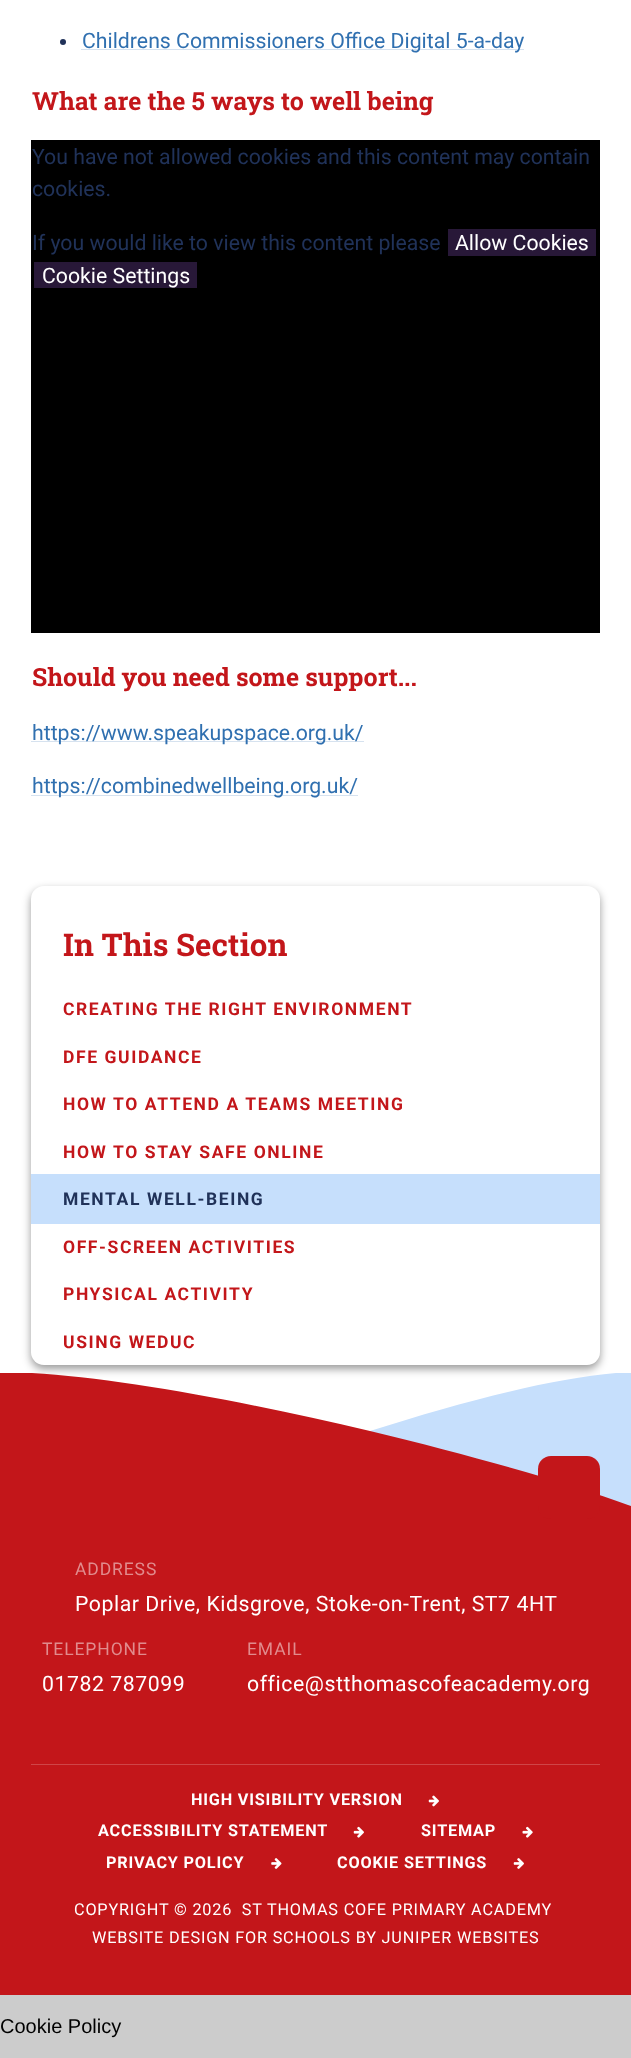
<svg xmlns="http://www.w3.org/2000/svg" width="631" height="2058">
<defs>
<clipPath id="clip1"><rect y="1373" width="631" height="133"/></clipPath>
</defs>
<rect width="100%" height="100%" fill="#ccc"/>
<rect width="631" height="1431" fill="#fff"/>
<circle cx="63" cy="42" r="3" fill="#203259"/>
<rect x="81" y="49" width="443" height="1" fill="#d6e2ef"/>
<text x="82" y="48" style="font-family:Roboto;font-size:21.25px;fill:#3070b0">Childrens Commissioners Office Digital 5-a-day</text>
<text x="32" y="110" style="font-family:Roboto Slab;font-size:25px;font-weight:bold;fill:#c3161a">What are the 5 ways to well being</text>
<rect x="31" y="140" width="569" height="493" fill="#000"/>
<text x="32" y="164" style="font-family:Roboto;font-size:21.25px;fill:#203259">You have not allowed cookies and this content may contain</text>
<text x="32" y="196" style="font-family:Roboto;font-size:21.25px;fill:#203259">cookies.</text>
<text x="32" y="250" style="font-family:Roboto;font-size:21.25px;fill:#203259">If you would like to view this content please</text>
<rect x="448" y="229" width="148" height="27" fill="#281838"/>
<text x="455" y="250" style="font-family:Roboto;font-size:21.25px;fill:#fff">Allow Cookies</text>
<rect x="34" y="262" width="163" height="26" fill="#281838"/>
<text x="42" y="283" style="font-family:Roboto;font-size:21.25px;fill:#fff">Cookie Settings</text>
<text x="32" y="686" style="font-family:Roboto Slab;font-size:25px;font-weight:bold;fill:#c3161a">Should you need some support...</text>
<rect x="31" y="741" width="333" height="1" fill="#d6e2ef"/>
<text x="32" y="740" style="font-family:Roboto;font-size:21.25px;fill:#3070b0">https://www.speakupspace.org.uk/</text>
<rect x="31" y="795" width="327" height="1" fill="#d6e2ef"/>
<text x="32" y="793" style="font-family:Roboto;font-size:21.25px;fill:#3070b0">https://combinedwellbeing.org.uk/</text>
<rect x="31" y="890" width="569" height="479" rx="13" fill="#00000066" filter="blur(4px)"/>
<rect x="31" y="886" width="569" height="479" rx="13" fill="#fff"/>
<text x="63" y="956" style="font-family:Roboto Slab;font-size:31.25px;font-weight:bold;fill:#c3161a">In This Section</text>
<text x="63" y="1015" style="font-family:Roboto;font-size:17.5px;font-weight:bold;letter-spacing:1.6px;fill:#c3161a">CREATING THE RIGHT ENVIRONMENT</text>
<text x="63" y="1063" style="font-family:Roboto;font-size:17.5px;font-weight:bold;letter-spacing:1.6px;fill:#c3161a">DFE GUIDANCE</text>
<text x="63" y="1110" style="font-family:Roboto;font-size:17.5px;font-weight:bold;letter-spacing:1.6px;fill:#c3161a">HOW TO ATTEND A TEAMS MEETING</text>
<text x="63" y="1158" style="font-family:Roboto;font-size:17.5px;font-weight:bold;letter-spacing:1.6px;fill:#c3161a">HOW TO STAY SAFE ONLINE</text>
<rect x="31" y="1174" width="569" height="50" fill="#c6dffc"/>
<text x="63" y="1205" style="font-family:Roboto;font-size:17.5px;font-weight:bold;letter-spacing:1.6px;fill:#203259">MENTAL WELL-BEING</text>
<text x="63" y="1253" style="font-family:Roboto;font-size:17.5px;font-weight:bold;letter-spacing:1.6px;fill:#c3161a">OFF-SCREEN ACTIVITIES</text>
<text x="63" y="1300" style="font-family:Roboto;font-size:17.5px;font-weight:bold;letter-spacing:1.6px;fill:#c3161a">PHYSICAL ACTIVITY</text>
<text x="63" y="1348" style="font-family:Roboto;font-size:17.5px;font-weight:bold;letter-spacing:1.6px;fill:#c3161a">USING WEDUC</text>
<rect y="1506" width="631" height="489" fill="#c3161a"/>
<g clip-path="url(#clip1)">
<path d="M631 1505v1c-158-1-316 0-475 0l4-1c61-23 135-50 210-74c97-31 194-56 261-59z" fill="#c6dffc"/>
<path d="M631 1506h-138h-493v-134c88 0 235 27 370 59c104 25 201 53 258 74z" fill="#c3161a"/>
</g>
<rect x="538" y="1456" width="62" height="63" rx="13" fill="#c3161a"/>
<rect x="31" y="1764" width="569" height="1" fill="#cf4548"/>
<text x="75" y="1575" style="font-family:Roboto;font-size:17.5px;letter-spacing:0.9px;fill:#e18b8d">ADDRESS</text>
<text x="75" y="1611" style="font-family:Roboto;font-size:21.25px;letter-spacing:0.55px;fill:#fff">Poplar Drive, Kidsgrove, Stoke-on-Trent, ST7 4HT</text>
<text x="42" y="1655" style="font-family:Roboto;font-size:17.5px;letter-spacing:0.9px;fill:#e18b8d">TELEPHONE</text>
<text x="42" y="1691" style="font-family:Roboto;font-size:21.25px;letter-spacing:0.55px;fill:#fff">01782 787099</text>
<text x="247" y="1655" style="font-family:Roboto;font-size:17.5px;letter-spacing:0.9px;fill:#e18b8d">EMAIL</text>
<text x="247" y="1691" style="font-family:Roboto;font-size:21.25px;letter-spacing:0.55px;fill:#fff">office@stthomascofeacademy.org</text>
<text x="191" y="1805" style="font-family:Roboto;font-size:16.25px;font-weight:bold;letter-spacing:0.8px;fill:#fff">HIGH VISIBILITY VERSION</text>
<image x="428" y="1795" width="11" height="12" href="media/1.png"/>
<text x="98" y="1836" style="font-family:Roboto;font-size:16.25px;font-weight:bold;letter-spacing:0.8px;fill:#fff">ACCESSIBILITY STATEMENT</text>
<image x="353" y="1826" width="11" height="12" href="media/2.png"/>
<text x="421" y="1836" style="font-family:Roboto;font-size:16.25px;font-weight:bold;letter-spacing:0.8px;fill:#fff">SITEMAP</text>
<image x="522" y="1826" width="11" height="12" href="media/3.png"/>
<text x="106" y="1868" style="font-family:Roboto;font-size:16.25px;font-weight:bold;letter-spacing:0.8px;fill:#fff">PRIVACY POLICY</text>
<image x="271" y="1858" width="11" height="11" href="media/4.png"/>
<text x="337" y="1868" style="font-family:Roboto;font-size:16.25px;font-weight:bold;letter-spacing:0.8px;fill:#fff">COOKIE SETTINGS</text>
<image x="513" y="1858" width="11" height="11" href="media/5.png"/>
<text x="74" y="1915" style="font-family:Roboto;font-size:16.25px;letter-spacing:0.8px;fill:#fff" xml:space="preserve">COPYRIGHT © 2026  ST THOMAS COFE PRIMARY ACADEMY</text>
<text x="92" y="1943" style="font-family:Roboto;font-size:16.25px;letter-spacing:0.8px;fill:#fff">WEBSITE DESIGN FOR SCHOOLS BY JUNIPER WEBSITES</text>
<text x="0" y="2033" style="font-family:Liberation Sans;font-size:20px;fill:#000">Cookie Policy</text>
</svg>
